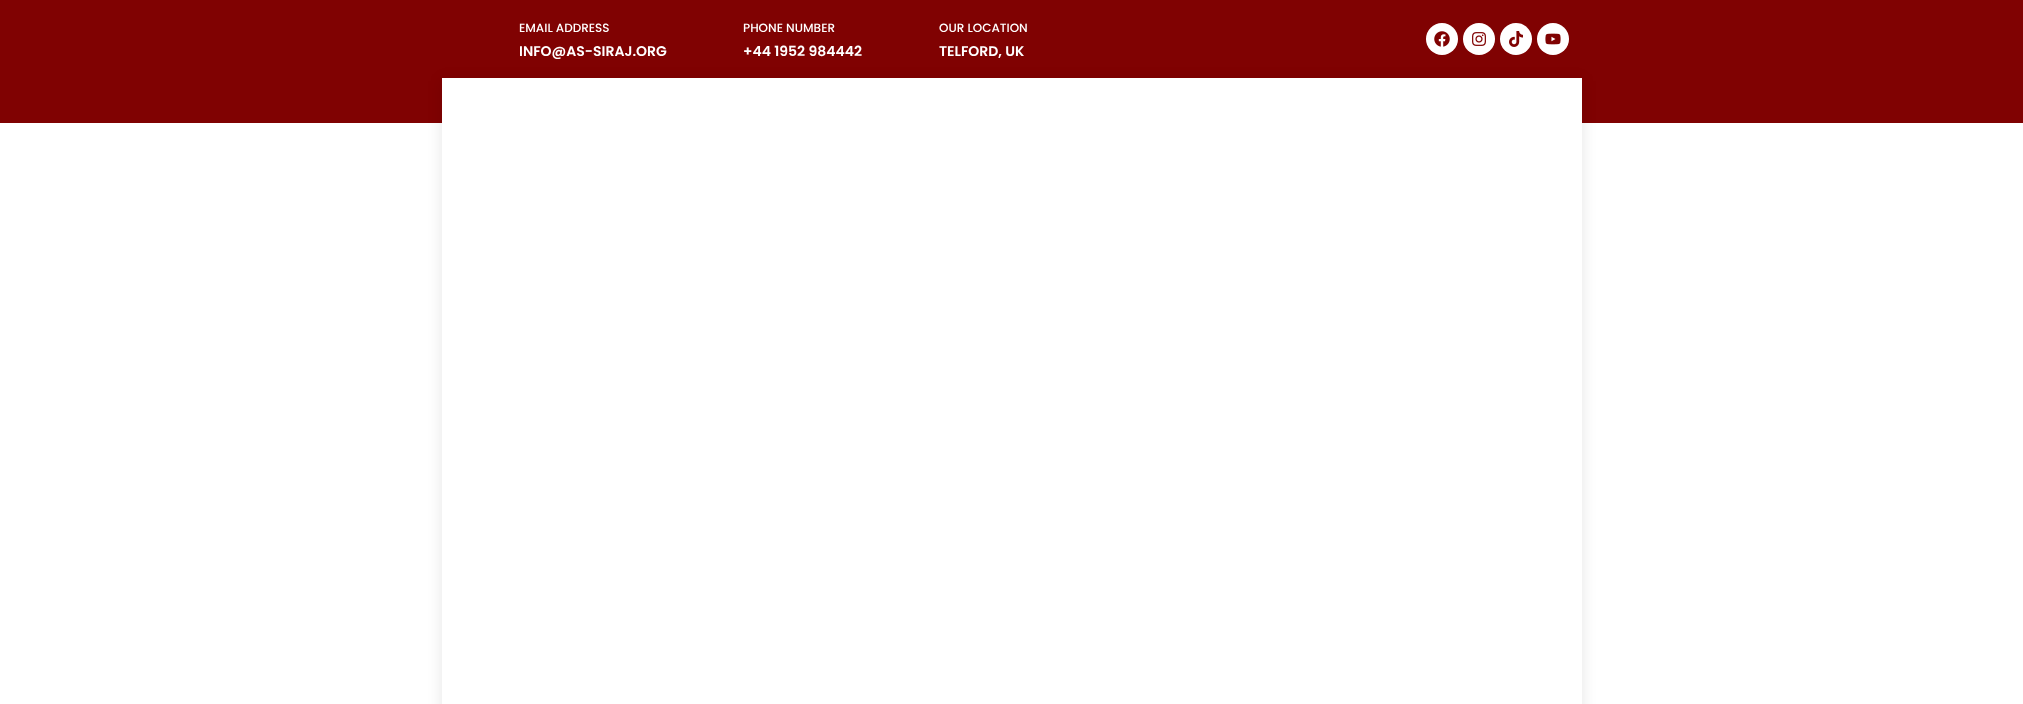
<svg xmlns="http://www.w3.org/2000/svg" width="2023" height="704">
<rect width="100%" height="100%" fill="#fff"/>
<rect width="2023" height="123" fill="#800202"/>
<text x="519" y="32" style="font-family:Poppins;font-size:12px;font-weight:500;fill:#fff">EMAIL ADDRESS</text>
<text x="519" y="56" style="font-family:Poppins;font-size:14px;font-weight:600;fill:#fff">INFO@AS-SIRAJ.ORG</text>
<text x="743" y="32" style="font-family:Poppins;font-size:12px;font-weight:500;fill:#fff">PHONE NUMBER</text>
<text x="743" y="56" style="font-family:Poppins;font-size:14px;font-weight:600;fill:#fff">+44 1952 984442</text>
<text x="939" y="32" style="font-family:Poppins;font-size:12px;font-weight:500;fill:#fff">OUR LOCATION</text>
<text x="939" y="56" style="font-family:Poppins;font-size:14px;font-weight:600;fill:#fff">TELFORD, UK</text>
<circle cx="1442" cy="39" r="16" fill="#fff"/>
<image x="1434" y="31" width="16" height="16" href="media/1.png"/>
<circle cx="1479" cy="39" r="16" fill="#fff"/>
<image x="1472" y="32" width="14" height="14" href="media/2.png"/>
<circle cx="1516" cy="39" r="16" fill="#fff"/>
<image x="1509" y="31" width="14" height="16" href="media/3.png"/>
<circle cx="1553" cy="39" r="16" fill="#fff"/>
<image x="1545" y="33" width="16" height="12" href="media/4.png"/>
<rect x="442" y="81" width="1140" height="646" fill="#0000001a" filter="blur(7.5px)"/>
<rect x="442" y="78" width="1140" height="626" fill="#fff"/>
</svg>
